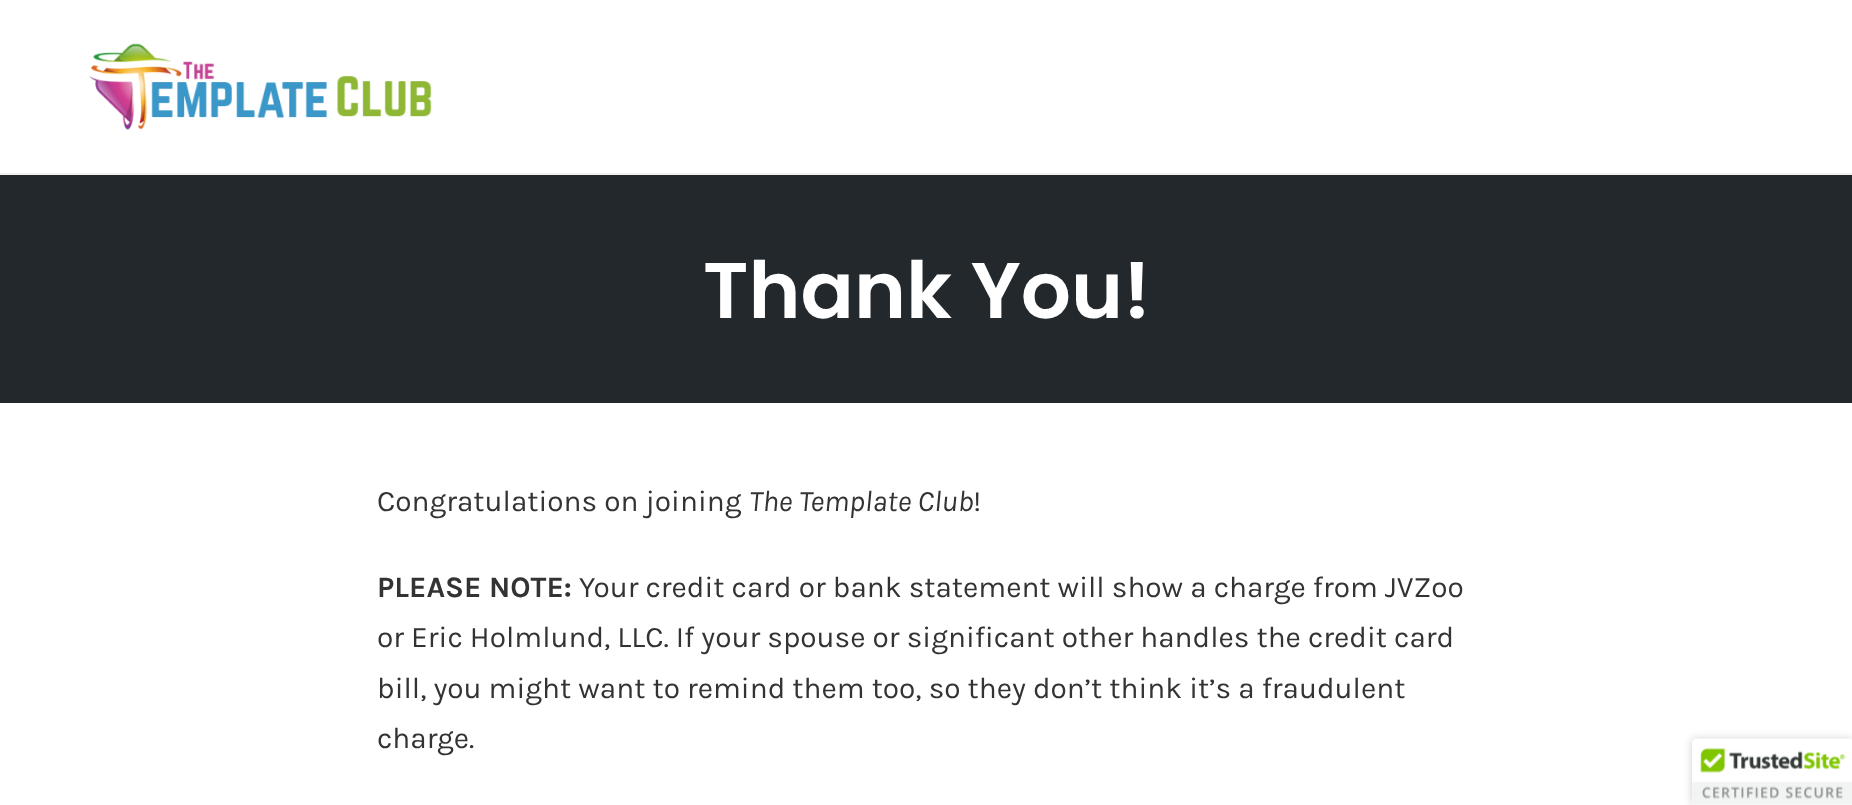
<svg xmlns="http://www.w3.org/2000/svg" width="1852" height="805">
<rect width="100%" height="100%" fill="#fff"/>
<rect y="173" width="1852" height="2" fill="#f0f0f0"/>
<image x="89" y="43" width="343" height="87" href="media/1.png"/>
<rect y="175" width="1852" height="228" fill="#23282d"/>
<text x="703" y="318" style="font-family:Poppins;font-size:78.75px;font-weight:600;fill:#fff">Thank You!</text>
<text x="377" y="511" style="font-family:Karla;font-size:29.75px;fill:#333">Congratulations on joining</text>
<text x="749" y="511" style="font-family:Karla;font-size:29.75px;font-style:italic;fill:#333">The Template Club</text>
<text x="973" y="511" style="font-family:Karla;font-size:29.75px;fill:#333">!</text>
<text x="377" y="597" style="font-family:Karla;font-size:29.75px;font-weight:bold;fill:#333">PLEASE NOTE:</text>
<text x="579" y="597" style="font-family:Karla;font-size:29.75px;fill:#333">Your credit card or bank statement will show a charge from JVZoo</text>
<text x="377" y="647" style="font-family:Karla;font-size:29.75px;fill:#333">or Eric Holmlund, LLC. If your spouse or significant other handles the credit card</text>
<text x="377" y="698" style="font-family:Karla;font-size:29.75px;fill:#333">bill, you might want to remind them too, so they don’t think it’s a fraudulent</text>
<text x="377" y="748" style="font-family:Karla;font-size:29.75px;fill:#333">charge.</text>
<rect x="1692" y="739" width="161" height="66" rx="4" fill="#00000033" filter="blur(4.5px)"/>
<path d="M1696 739h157v66h-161v-62c0-2 2-4 4-4z" fill="#fff"/>
<image x="1692" y="738" width="160" height="67" href="media/2.png"/>
</svg>
